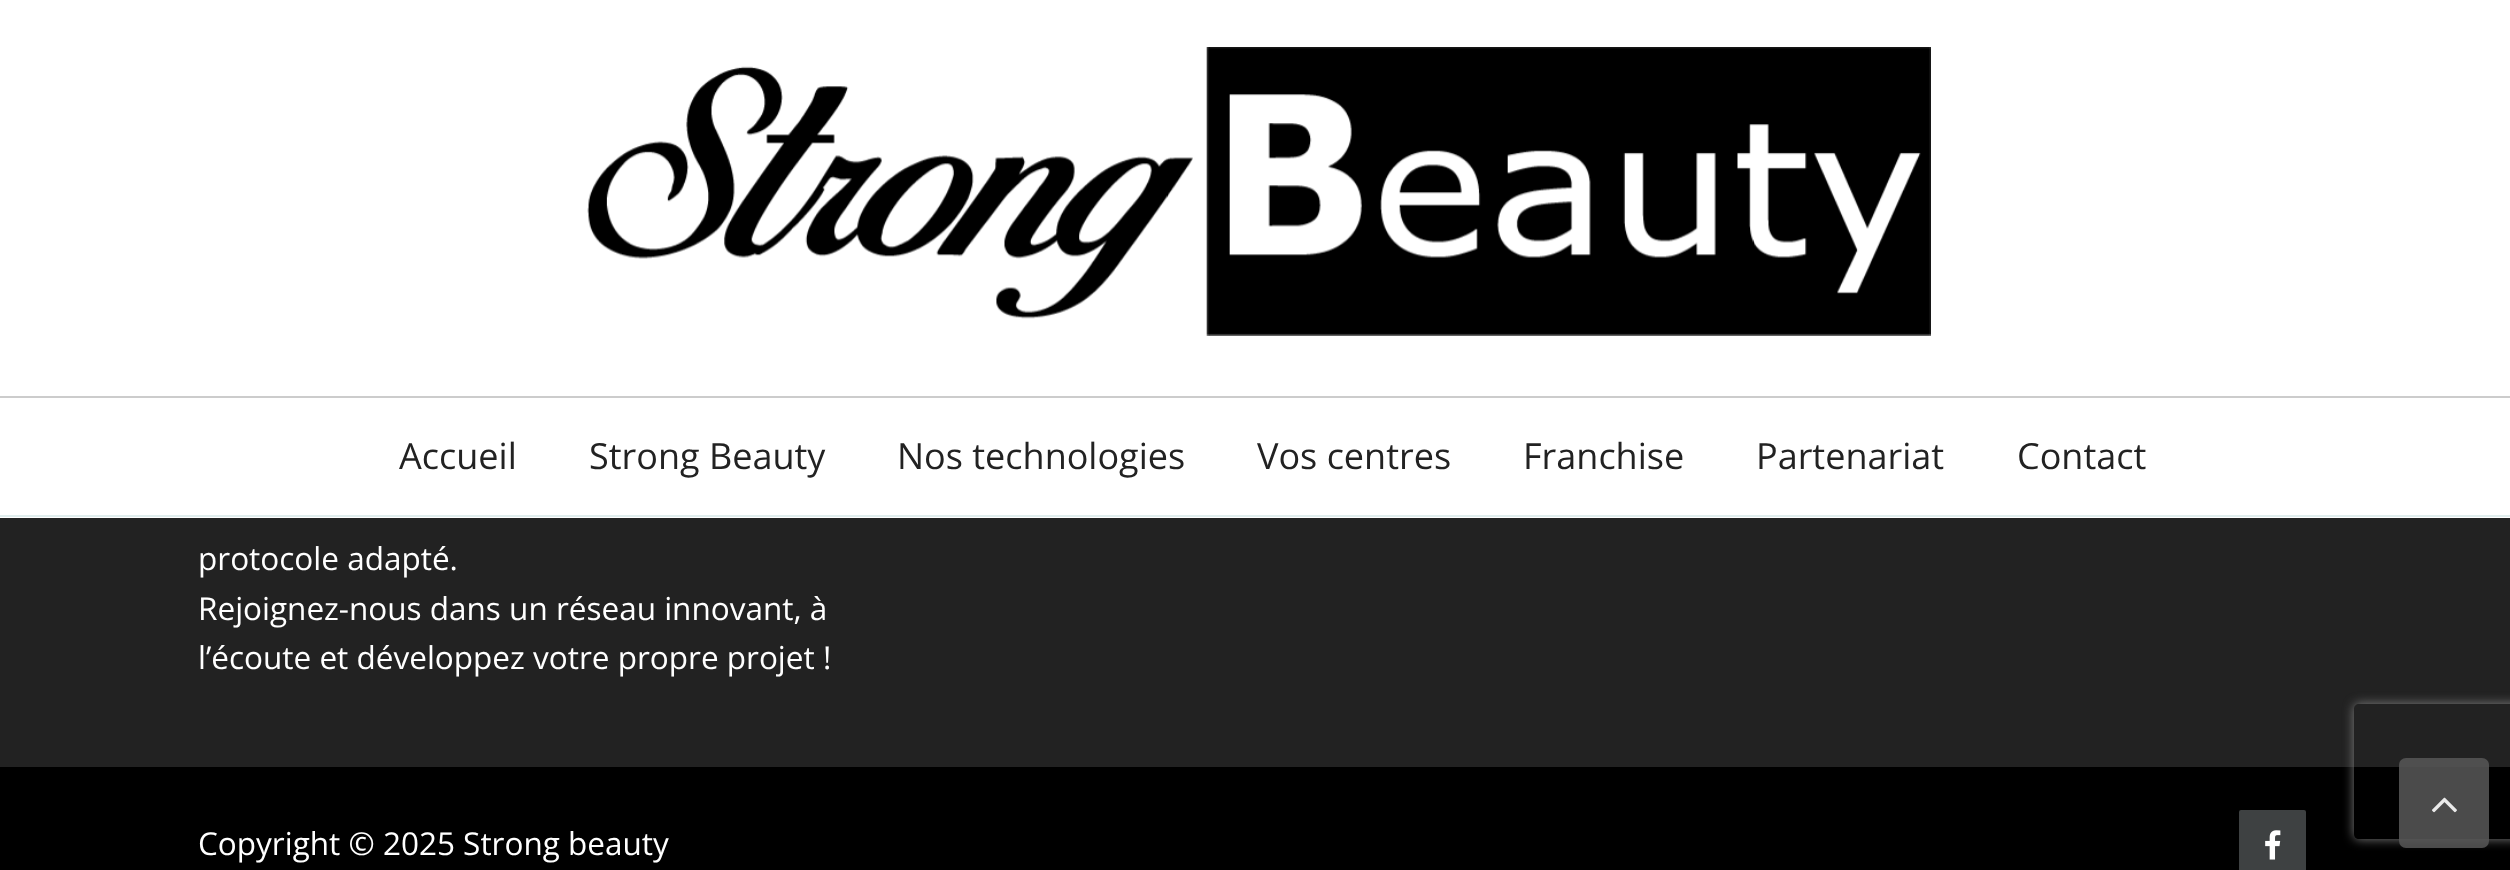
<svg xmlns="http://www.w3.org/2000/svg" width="2510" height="870">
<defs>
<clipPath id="clip1"><path d="M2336 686h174v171h-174zm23 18h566c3 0 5 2 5 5v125c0 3-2 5-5 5h-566c-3 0-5-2-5-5v-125c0-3 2-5 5-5z" clip-rule="evenodd"/></clipPath>
</defs>
<rect width="100%" height="100%" fill="#000"/>
<rect width="2510" height="518" fill="#fff"/>
<rect y="515" width="2510" height="2" fill="#e0eded"/>
<rect y="396" width="2510" height="2" fill="#ccc"/>
<image x="587" y="47" width="1344" height="289" href="media/1.png"/>
<text x="399" y="469" style="font-family:Open Sans;font-size:36px;fill:#222">Accueil</text>
<text x="589" y="469" style="font-family:Open Sans;font-size:36px;fill:#222">Strong Beauty</text>
<text x="897" y="469" style="font-family:Open Sans;font-size:36px;fill:#222">Nos technologies</text>
<text x="1257" y="469" style="font-family:Open Sans;font-size:36px;fill:#222">Vos centres</text>
<text x="1523" y="469" style="font-family:Open Sans;font-size:36px;fill:#222">Franchise</text>
<text x="1756" y="469" style="font-family:Open Sans;font-size:36px;fill:#222">Partenariat</text>
<text x="2017" y="469" style="font-family:Open Sans;font-size:36px;fill:#222">Contact</text>
<rect y="518" width="2510" height="249" fill="#222"/>
<text x="198" y="570" style="font-family:Open Sans;font-size:31.5px;fill:#fff">protocole adapté.</text>
<text x="198" y="620" style="font-family:Open Sans;font-size:31.5px;fill:#fff">Rejoignez-nous dans un réseau innovant, à</text>
<text x="198" y="669" style="font-family:Open Sans;font-size:31.5px;fill:#fff">l’écoute et développez votre propre projet !</text>
<text x="198" y="855" style="font-family:Open Sans;font-size:31.5px;fill:#fff">Copyright © 2025 Strong beauty</text>
<rect x="2239" y="810" width="67" height="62" rx="2" fill="#3e4142"/>
<image x="2265" y="830" width="16" height="30" href="media/2.png"/>
<g clip-path="url(#clip1)">
<rect x="2354" y="704" width="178" height="135" rx="5" fill="#808080" filter="blur(5.5px)"/>
</g>
<rect x="2399" y="758" width="90" height="90" rx="7" fill="#555555e0"/>
<image x="2432" y="797" width="25" height="16" href="media/3.png"/>
</svg>
